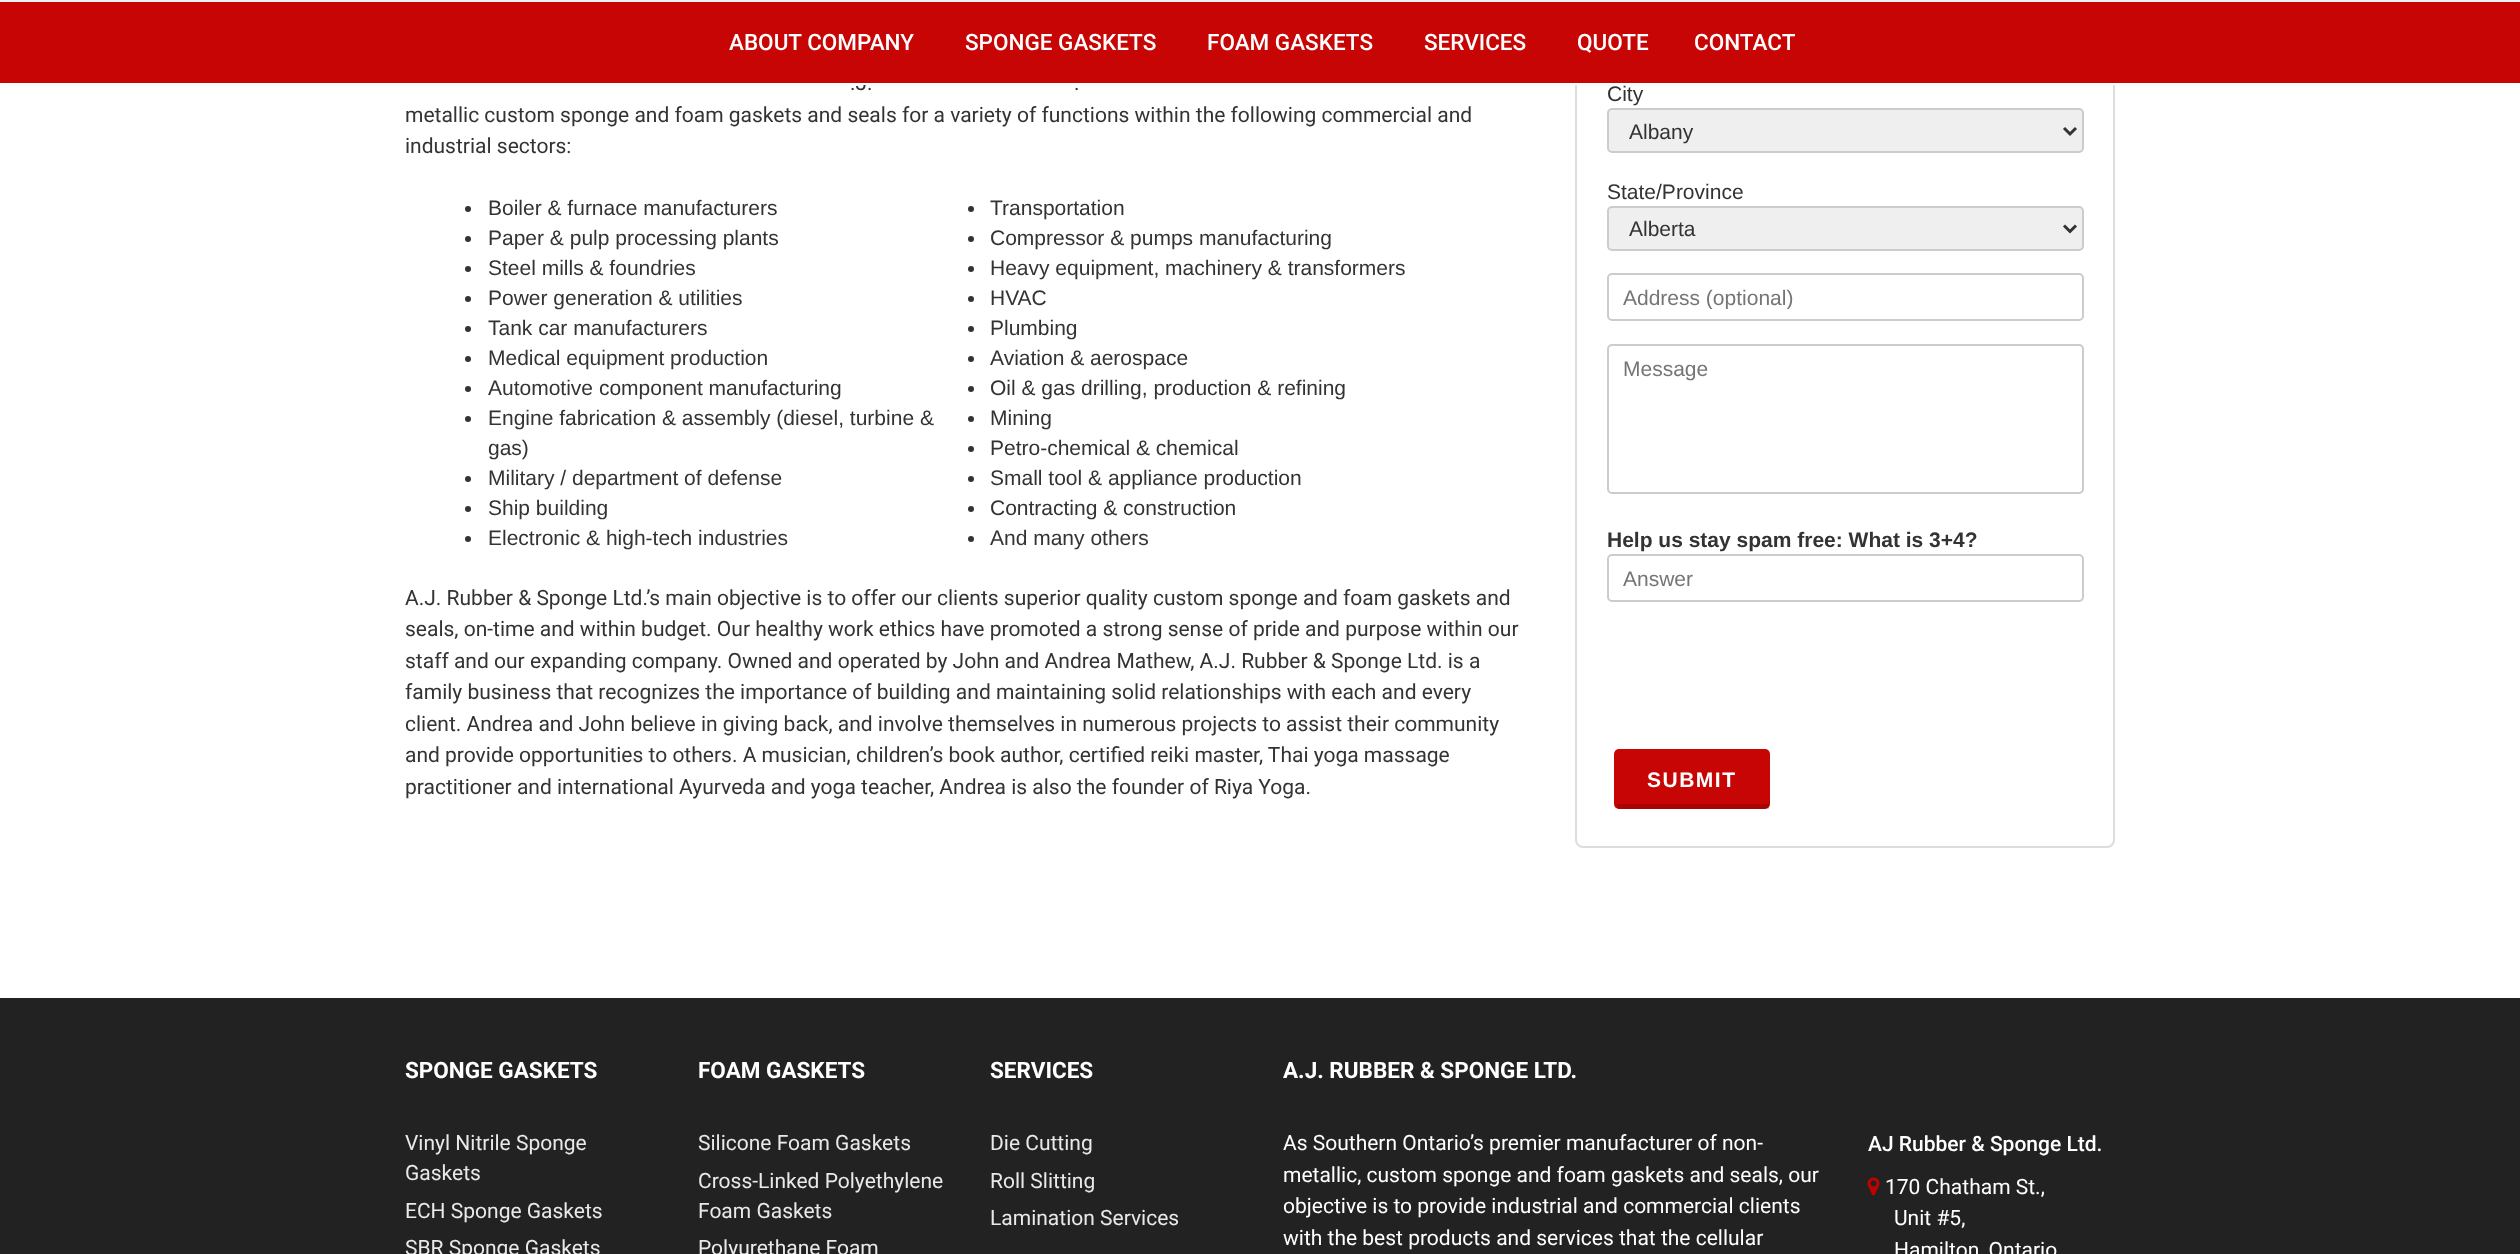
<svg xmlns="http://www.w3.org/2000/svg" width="2520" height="1254">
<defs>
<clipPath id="clip1"><rect x="1623" y="285" width="444" height="24"/></clipPath>
</defs>
<rect width="100%" height="100%" fill="#fff"/>
<rect x="1576" y="-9" width="538" height="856" rx="7" fill="none" stroke="#ddd" stroke-width="2"/>
<rect width="2520" height="84" fill="#ddd" filter="blur(1.5px)"/>
<rect width="2520" height="2" fill="#f0f0f0"/>
<text x="850" y="90" style="font-family:Roboto;font-size:21px;fill:#333">.J.</text>
<rect y="2" width="2520" height="81" fill="#c70505"/>
<rect y="83" width="2520" height="2" fill="#fff"/>
<text x="729" y="50" style="font-family:Roboto;font-size:22.5px;font-weight:500;fill:#fff">ABOUT COMPANY</text>
<text x="965" y="50" style="font-family:Roboto;font-size:22.5px;font-weight:500;fill:#fff">SPONGE GASKETS</text>
<text x="1207" y="50" style="font-family:Roboto;font-size:22.5px;font-weight:500;fill:#fff">FOAM GASKETS</text>
<text x="1424" y="50" style="font-family:Roboto;font-size:22.5px;font-weight:500;fill:#fff">SERVICES</text>
<text x="1577" y="50" style="font-family:Roboto;font-size:22.5px;font-weight:500;fill:#fff">QUOTE</text>
<text x="1694" y="50" style="font-family:Roboto;font-size:22.5px;font-weight:500;fill:#fff">CONTACT</text>
<text x="1074" y="90" style="font-family:Roboto;font-size:21px;fill:#333">.</text>
<text x="405" y="122" style="font-family:Roboto;font-size:21px;fill:#333">metallic custom sponge and foam gaskets and seals for a variety of functions within the following commercial and</text>
<text x="405" y="153" style="font-family:Roboto;font-size:21px;fill:#333">industrial sectors:</text>
<circle cx="468" cy="209" r="3" fill="#333"/>
<text x="488" y="215" style="font-family:Liberation Sans;font-size:21px;fill:#333">Boiler &amp; furnace manufacturers</text>
<circle cx="468" cy="239" r="3" fill="#333"/>
<text x="488" y="245" style="font-family:Liberation Sans;font-size:21px;fill:#333">Paper &amp; pulp processing plants</text>
<circle cx="468" cy="269" r="3" fill="#333"/>
<text x="488" y="275" style="font-family:Liberation Sans;font-size:21px;fill:#333">Steel mills &amp; foundries</text>
<circle cx="468" cy="299" r="3" fill="#333"/>
<text x="488" y="305" style="font-family:Liberation Sans;font-size:21px;fill:#333">Power generation &amp; utilities</text>
<circle cx="468" cy="329" r="3" fill="#333"/>
<text x="488" y="335" style="font-family:Liberation Sans;font-size:21px;fill:#333">Tank car manufacturers</text>
<circle cx="468" cy="359" r="3" fill="#333"/>
<text x="488" y="365" style="font-family:Liberation Sans;font-size:21px;fill:#333">Medical equipment production</text>
<circle cx="468" cy="389" r="3" fill="#333"/>
<text x="488" y="395" style="font-family:Liberation Sans;font-size:21px;fill:#333">Automotive component manufacturing</text>
<circle cx="468" cy="419" r="3" fill="#333"/>
<text x="488" y="425" style="font-family:Liberation Sans;font-size:21px;fill:#333">Engine fabrication &amp; assembly (diesel, turbine &amp;</text>
<text x="488" y="455" style="font-family:Liberation Sans;font-size:21px;fill:#333">gas)</text>
<circle cx="468" cy="479" r="3" fill="#333"/>
<text x="488" y="485" style="font-family:Liberation Sans;font-size:21px;fill:#333">Military / department of defense</text>
<circle cx="468" cy="509" r="3" fill="#333"/>
<text x="488" y="515" style="font-family:Liberation Sans;font-size:21px;fill:#333">Ship building</text>
<circle cx="468" cy="539" r="3" fill="#333"/>
<text x="488" y="545" style="font-family:Liberation Sans;font-size:21px;fill:#333">Electronic &amp; high-tech industries</text>
<circle cx="971" cy="209" r="3" fill="#333"/>
<text x="990" y="215" style="font-family:Liberation Sans;font-size:21px;fill:#333">Transportation</text>
<circle cx="971" cy="239" r="3" fill="#333"/>
<text x="990" y="245" style="font-family:Liberation Sans;font-size:21px;fill:#333">Compressor &amp; pumps manufacturing</text>
<circle cx="971" cy="269" r="3" fill="#333"/>
<text x="990" y="275" style="font-family:Liberation Sans;font-size:21px;fill:#333">Heavy equipment, machinery &amp; transformers</text>
<circle cx="971" cy="299" r="3" fill="#333"/>
<text x="990" y="305" style="font-family:Liberation Sans;font-size:21px;fill:#333">HVAC</text>
<circle cx="971" cy="329" r="3" fill="#333"/>
<text x="990" y="335" style="font-family:Liberation Sans;font-size:21px;fill:#333">Plumbing</text>
<circle cx="971" cy="359" r="3" fill="#333"/>
<text x="990" y="365" style="font-family:Liberation Sans;font-size:21px;fill:#333">Aviation &amp; aerospace</text>
<circle cx="971" cy="389" r="3" fill="#333"/>
<text x="990" y="395" style="font-family:Liberation Sans;font-size:21px;fill:#333">Oil &amp; gas drilling, production &amp; refining</text>
<circle cx="971" cy="419" r="3" fill="#333"/>
<text x="990" y="425" style="font-family:Liberation Sans;font-size:21px;fill:#333">Mining</text>
<circle cx="971" cy="449" r="3" fill="#333"/>
<text x="990" y="455" style="font-family:Liberation Sans;font-size:21px;fill:#333">Petro-chemical &amp; chemical</text>
<circle cx="971" cy="479" r="3" fill="#333"/>
<text x="990" y="485" style="font-family:Liberation Sans;font-size:21px;fill:#333">Small tool &amp; appliance production</text>
<circle cx="971" cy="509" r="3" fill="#333"/>
<text x="990" y="515" style="font-family:Liberation Sans;font-size:21px;fill:#333">Contracting &amp; construction</text>
<circle cx="971" cy="539" r="3" fill="#333"/>
<text x="990" y="545" style="font-family:Liberation Sans;font-size:21px;fill:#333">And many others</text>
<text x="405" y="605" style="font-family:Roboto;font-size:21px;fill:#333">A.J. Rubber &amp; Sponge Ltd.’s main objective is to offer our clients superior quality custom sponge and foam gaskets and</text>
<text x="405" y="636" style="font-family:Roboto;font-size:21px;fill:#333">seals, on-time and within budget. Our healthy work ethics have promoted a strong sense of pride and purpose within our</text>
<text x="405" y="668" style="font-family:Roboto;font-size:21px;fill:#333">staff and our expanding company. Owned and operated by John and Andrea Mathew, A.J. Rubber &amp; Sponge Ltd. is a</text>
<text x="405" y="699" style="font-family:Roboto;font-size:21px;fill:#333">family business that recognizes the importance of building and maintaining solid relationships with each and every</text>
<text x="405" y="731" style="font-family:Roboto;font-size:21px;fill:#333">client. Andrea and John believe in giving back, and involve themselves in numerous projects to assist their community</text>
<text x="405" y="762" style="font-family:Roboto;font-size:21px;fill:#333">and provide opportunities to others. A musician, children’s book author, certified reiki master, Thai yoga massage</text>
<text x="405" y="794" style="font-family:Roboto;font-size:21px;fill:#333">practitioner and international Ayurveda and yoga teacher, Andrea is also the founder of Riya Yoga.</text>
<text x="1607" y="101" style="font-family:Liberation Sans;font-size:21px;fill:#333">City</text>
<rect x="1608" y="109" width="475" height="43" rx="4" fill="#efefef" stroke="#ccc" stroke-width="2"/>
<path d="M2064 128l6 6l6-6" fill="none" stroke="#333" stroke-width="3"/>
<text x="1629" y="139" style="font-family:Liberation Sans;font-size:21px;fill:#333">Albany</text>
<text x="1607" y="199" style="font-family:Liberation Sans;font-size:21px;fill:#333">State/Province</text>
<rect x="1608" y="207" width="475" height="43" rx="4" fill="#efefef" stroke="#ccc" stroke-width="2"/>
<path d="M2064 225.5l6 6l6-6" fill="none" stroke="#333" stroke-width="3"/>
<text x="1629" y="236" style="font-family:Liberation Sans;font-size:21px;fill:#333">Alberta</text>
<rect x="1608" y="274" width="475" height="46" rx="4" fill="none" stroke="#ccc" stroke-width="2"/>
<g clip-path="url(#clip1)">
<text x="1623" y="305" style="font-family:Liberation Sans;font-size:21px;fill:#757575">Address (optional)</text>
</g>
<rect x="1608" y="345" width="475" height="148" rx="4" fill="none" stroke="#ccc" stroke-width="2"/>
<text x="1623" y="376" style="font-family:Liberation Sans;font-size:21px;fill:#757575">Message</text>
<text x="1607" y="547" style="font-family:Liberation Sans;font-size:21px;font-weight:bold;fill:#333">Help us stay spam free: What is 3+4?</text>
<rect x="1608" y="555" width="475" height="46" rx="4" fill="none" stroke="#ccc" stroke-width="2"/>
<text x="1623" y="586" style="font-family:Liberation Sans;font-size:21px;fill:#757575">Answer</text>
<rect x="1614" y="749" width="156" height="60" rx="5" fill="#c70505"/>
<rect x="1617" y="804" width="152" height="5" fill="#00000026"/>
<text x="1647" y="787" style="font-family:Liberation Sans;font-size:21px;font-weight:bold;letter-spacing:1.5px;fill:#fff">SUBMIT</text>
<rect y="998" width="2520" height="256" fill="#222"/>
<text x="405" y="1078" style="font-family:Roboto;font-size:22.5px;font-weight:bold;fill:#fff">SPONGE GASKETS</text>
<text x="405" y="1150" style="font-family:Roboto;font-size:21px;fill:#e9e9e9">Vinyl Nitrile Sponge</text>
<text x="405" y="1180" style="font-family:Roboto;font-size:21px;fill:#e9e9e9">Gaskets</text>
<text x="405" y="1218" style="font-family:Roboto;font-size:21px;fill:#e9e9e9">ECH Sponge Gaskets</text>
<text x="405" y="1255" style="font-family:Roboto;font-size:21px;fill:#e9e9e9">SBR Sponge Gaskets</text>
<text x="698" y="1078" style="font-family:Roboto;font-size:22.5px;font-weight:bold;fill:#fff">FOAM GASKETS</text>
<text x="698" y="1150" style="font-family:Roboto;font-size:21px;fill:#e9e9e9">Silicone Foam Gaskets</text>
<text x="698" y="1188" style="font-family:Roboto;font-size:21px;fill:#e9e9e9">Cross-Linked Polyethylene</text>
<text x="698" y="1218" style="font-family:Roboto;font-size:21px;fill:#e9e9e9">Foam Gaskets</text>
<text x="698" y="1255" style="font-family:Roboto;font-size:21px;fill:#e9e9e9">Polyurethane Foam</text>
<text x="990" y="1078" style="font-family:Roboto;font-size:22.5px;font-weight:bold;fill:#fff">SERVICES</text>
<text x="990" y="1150" style="font-family:Roboto;font-size:21px;fill:#e9e9e9">Die Cutting</text>
<text x="990" y="1188" style="font-family:Roboto;font-size:21px;fill:#e9e9e9">Roll Slitting</text>
<text x="990" y="1225" style="font-family:Roboto;font-size:21px;fill:#e9e9e9">Lamination Services</text>
<text x="1283" y="1078" style="font-family:Roboto;font-size:22.5px;font-weight:bold;fill:#fff">A.J. RUBBER &amp; SPONGE LTD.</text>
<text x="1283" y="1150" style="font-family:Roboto;font-size:21px;fill:#fff">As Southern Ontario’s premier manufacturer of non-</text>
<text x="1283" y="1182" style="font-family:Roboto;font-size:21px;fill:#fff">metallic, custom sponge and foam gaskets and seals, our</text>
<text x="1283" y="1213" style="font-family:Roboto;font-size:21px;fill:#fff">objective is to provide industrial and commercial clients</text>
<text x="1283" y="1245" style="font-family:Roboto;font-size:21px;fill:#fff">with the best products and services that the cellular</text>
<text x="1868" y="1151" style="font-family:Roboto;font-size:21px;font-weight:500;fill:#fff">AJ Rubber &amp; Sponge Ltd.</text>
<image x="1867" y="1177" width="13" height="19" href="media/1.png"/>
<text x="1885" y="1194" style="font-family:Roboto;font-size:21px;fill:#fff">170 Chatham St.,</text>
<text x="1894" y="1225" style="font-family:Roboto;font-size:21px;fill:#fff">Unit #5,</text>
<text x="1894" y="1257" style="font-family:Roboto;font-size:21px;fill:#fff">Hamilton, Ontario</text>
</svg>
